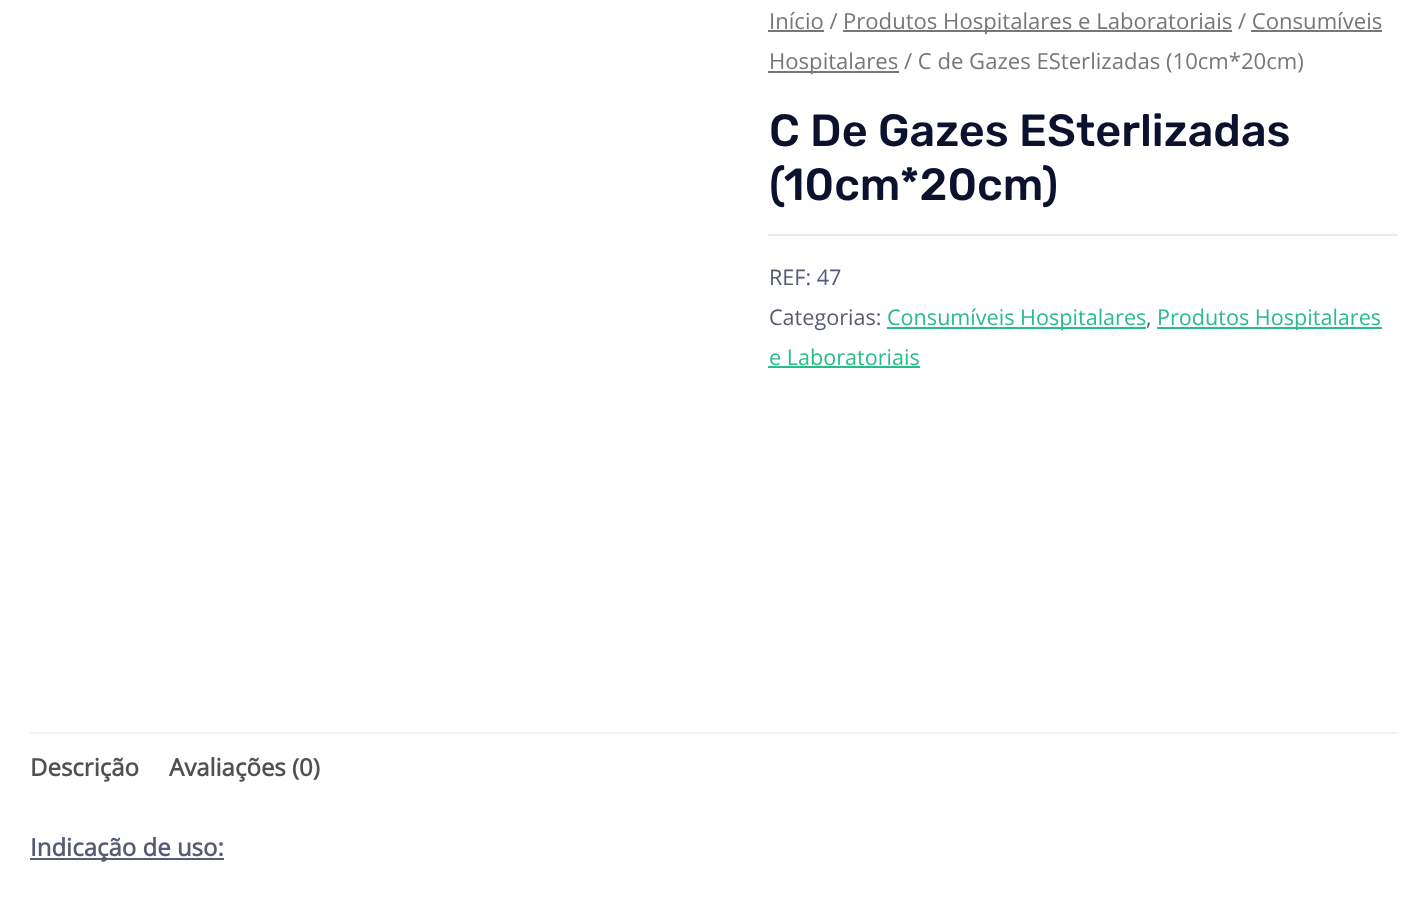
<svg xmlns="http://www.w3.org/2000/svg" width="1427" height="918">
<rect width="100%" height="100%" fill="#fff"/>
<text x="769" y="29" style="font-family:Open Sans;font-size:22.1px;fill:#777">Início /</text>
<rect x="768" y="30" width="56" height="2" fill="#777"/>
<rect x="843" y="30" width="389" height="2" fill="#777"/>
<text x="843" y="29" style="font-family:Open Sans;font-size:22.1px;fill:#777">Produtos Hospitalares e Laboratoriais / Consumíveis</text>
<rect x="768" y="71" width="131" height="2" fill="#777"/>
<text x="769" y="69" style="font-family:Open Sans;font-size:22.1px;fill:#777">Hospitalares / C de Gazes ESterlizadas (10cm*20cm)</text>
<rect x="1251" y="30" width="131" height="2" fill="#777"/>
<text x="769" y="146" style="font-family:Rubik;font-size:45px;font-weight:300;fill:#0c122d">C De Gazes ESterlizadas</text>
<text x="769" y="200" style="font-family:Rubik;font-size:45px;font-weight:300;fill:#0c122d">(10cm*20cm)</text>
<rect x="768" y="234" width="630" height="2" fill="#ebebeb"/>
<text x="769" y="285" style="font-family:Open Sans;font-size:21.6px;fill:#575c74">REF: 47</text>
<text x="769" y="325" style="font-family:Open Sans;font-size:21.6px;fill:#575c74">Categorias:</text>
<rect x="887" y="327" width="259" height="2" fill="#28bd86"/>
<text x="887" y="325" style="font-family:Open Sans;font-size:21.6px;fill:#28bd86">Consumíveis Hospitalares</text>
<text x="1146" y="325" style="font-family:Open Sans;font-size:21.6px;fill:#575c74">,</text>
<rect x="1157" y="327" width="225" height="2" fill="#28bd86"/>
<text x="1157" y="325" style="font-family:Open Sans;font-size:21.6px;fill:#28bd86">Produtos Hospitalares</text>
<text x="769" y="365" style="font-family:Open Sans;font-size:21.6px;fill:#28bd86">e Laboratoriais</text>
<rect x="768" y="366" width="152" height="2" fill="#28bd86"/>
<rect x="30" y="732" width="1368" height="2" fill="#f2f2f2"/>
<text x="30" y="776" style="font-family:Open Sans;font-size:24px;font-weight:bold;fill:#515151">Descrição</text>
<text x="169" y="776" style="font-family:Open Sans;font-size:24px;font-weight:bold;fill:#515151">Avaliações (0)</text>
<rect x="30" y="858" width="194" height="2" fill="#575c74"/>
<text x="30" y="856" style="font-family:Open Sans;font-size:24px;font-weight:bold;fill:#575c74">Indicação de uso:</text>
</svg>
